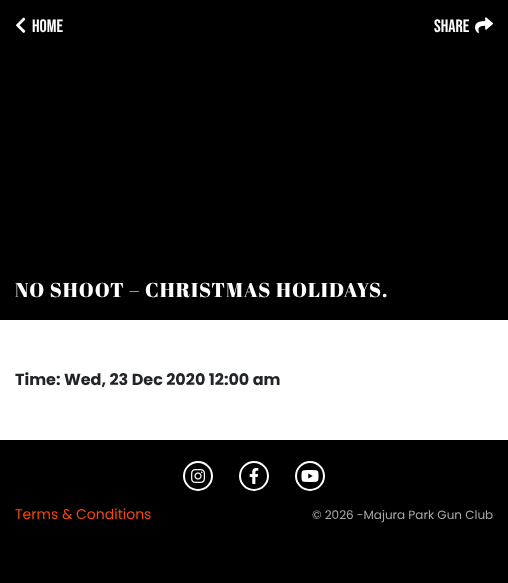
<svg xmlns="http://www.w3.org/2000/svg" width="508" height="583">
<rect width="100%" height="100%" fill="#000"/>
<image x="16" y="17" width="10" height="16" href="media/1.png"/>
<text x="32" y="32" style="font-family:Bebas Neue;font-size:18px;fill:#fff">Home</text>
<text x="434" y="32" style="font-family:Bebas Neue;font-size:18px;fill:#fff">Share</text>
<image x="475" y="17" width="18" height="17" href="media/2.png"/>
<text x="15" y="297" style="font-family:Abril Fatface;font-size:20px;letter-spacing:1px;fill:#fff">NO SHOOT – CHRISTMAS HOLIDAYS.</text>
<rect y="320" width="508" height="120" fill="#fff"/>
<text x="15" y="385" style="font-family:Poppins;font-size:16px;font-weight:bold;fill:#212529">Time: Wed, 23 Dec 2020 12:00 am</text>
<circle cx="198" cy="476" r="14" fill="none" stroke="#fff" stroke-width="2"/>
<image x="191" y="469" width="15" height="14" href="media/3.png"/>
<circle cx="254" cy="476" r="14" fill="none" stroke="#fff" stroke-width="2"/>
<image x="249" y="468" width="10" height="16" href="media/4.png"/>
<circle cx="310" cy="476" r="14" fill="none" stroke="#fff" stroke-width="2"/>
<image x="301" y="470" width="18" height="12" href="media/5.png"/>
<text x="15" y="519" style="font-family:Poppins;font-size:14px;fill:#f24710">Terms &amp; Conditions</text>
<text x="312" y="519" style="font-family:Poppins;font-size:12px;fill:#a8a8a8">© 2026 -Majura Park Gun Club</text>
</svg>
